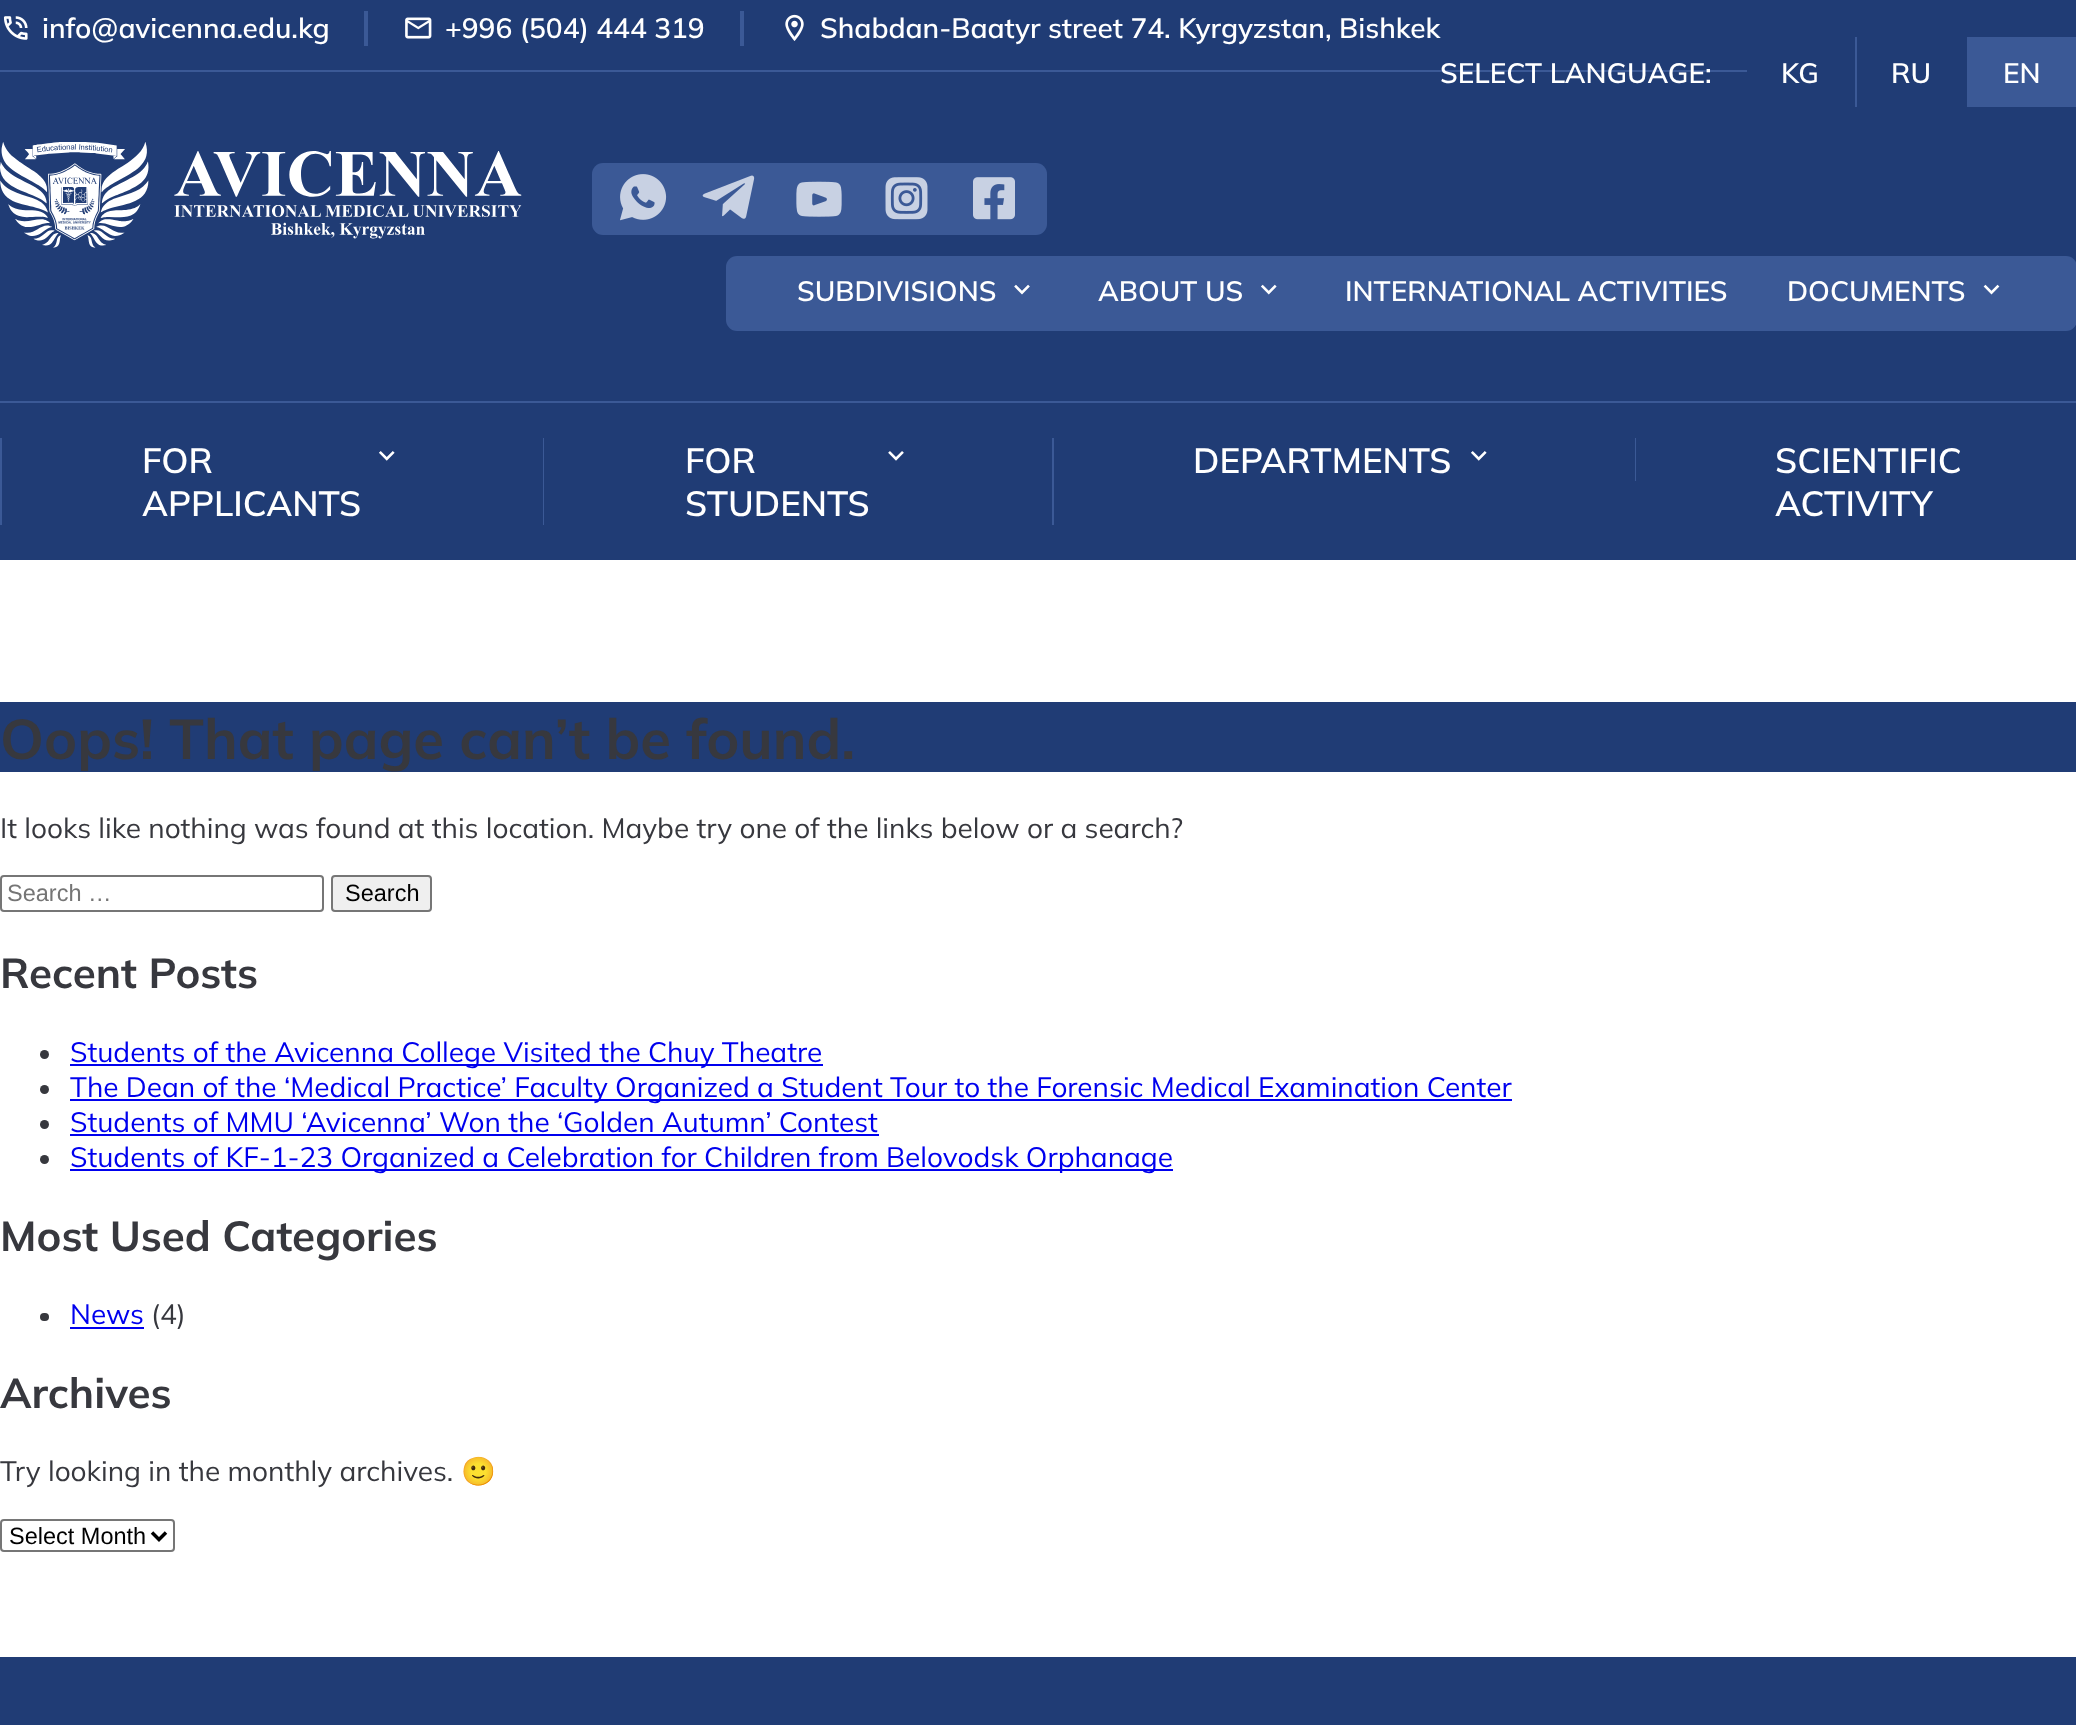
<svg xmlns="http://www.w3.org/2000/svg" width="2076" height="1725">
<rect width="100%" height="100%" fill="#fff"/>
<rect width="2076" height="560" fill="#203c75"/>
<rect y="70" width="1747" height="2" fill="#3b5996"/>
<rect x="364" y="11" width="4" height="35" fill="#3b5996"/>
<image x="3" y="16" width="25" height="24" href="media/1.png"/>
<text x="42" y="38" style="font-family:Mulish;font-size:28px;font-weight:600;fill:#fff">info@avicenna.edu.kg</text>
<rect x="740" y="11" width="4" height="35" fill="#3b5996"/>
<image x="405" y="17" width="27" height="22" href="media/2.png"/>
<text x="445" y="38" style="font-family:Mulish;font-size:28px;font-weight:600;fill:#fff">+996 (504) 444 319</text>
<image x="785" y="14" width="19" height="27" href="media/3.png"/>
<text x="820" y="38" style="font-family:Mulish;font-size:28px;font-weight:600;fill:#fff">Shabdan-Baatyr street 74. Kyrgyzstan, Bishkek</text>
<text x="1440" y="83" style="font-family:Mulish;font-size:28px;font-weight:600;fill:#fff">SELECT LANGUAGE:</text>
<text x="1781" y="83" style="font-family:Mulish;font-size:28px;font-weight:600;fill:#fff">KG</text>
<rect x="1855" y="37" width="2" height="70" fill="#3b5996"/>
<text x="1891" y="83" style="font-family:Mulish;font-size:28px;font-weight:600;fill:#fff">RU</text>
<rect x="1967" y="37" width="109" height="70" fill="#3b5996"/>
<text x="2003" y="83" style="font-family:Mulish;font-size:28px;font-weight:600;fill:#fff">EN</text>
<rect y="401" width="2076" height="2" fill="#3b5996"/>
<image x="0" y="142" width="522" height="106" href="media/4.png"/>
<rect x="592" y="163" width="455" height="72" rx="11" fill="#3b5996"/>
<image x="620" y="174" width="47" height="47" href="media/5.png"/>
<image x="702" y="175" width="53" height="44" href="media/6.png"/>
<image x="796" y="181" width="46" height="36" href="media/7.png"/>
<image x="885" y="177" width="43" height="43" href="media/8.png"/>
<image x="973" y="177" width="42" height="43" href="media/9.png"/>
<rect x="726" y="256" width="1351" height="75" rx="11" fill="#3b5996"/>
<text x="797" y="301" style="font-family:Mulish;font-size:28px;font-weight:600;fill:#fff">SUBDIVISIONS</text>
<image x="1014" y="284" width="16" height="11" href="media/10.png"/>
<text x="1098" y="301" style="font-family:Mulish;font-size:28px;font-weight:600;fill:#fff">ABOUT US</text>
<image x="1261" y="284" width="16" height="11" href="media/11.png"/>
<text x="1345" y="301" style="font-family:Mulish;font-size:28px;font-weight:600;fill:#fff">INTERNATIONAL ACTIVITIES</text>
<text x="1787" y="301" style="font-family:Mulish;font-size:28px;font-weight:600;fill:#fff">DOCUMENTS</text>
<image x="1983" y="284" width="17" height="11" href="media/12.png"/>
<rect x="543" y="438" width="1" height="87" fill="#3b5996"/>
<rect y="438" width="2" height="87" fill="#3b5996"/>
<text x="142" y="473" style="font-family:Mulish;font-size:35px;font-weight:600;fill:#fff">FOR</text>
<image x="379" y="451" width="16" height="10" href="media/13.png"/>
<text x="142" y="516" style="font-family:Mulish;font-size:35px;font-weight:600;fill:#fff">APPLICANTS</text>
<rect x="1052" y="438" width="2" height="87" fill="#3b5996"/>
<text x="685" y="473" style="font-family:Mulish;font-size:35px;font-weight:600;fill:#fff">FOR</text>
<image x="888" y="451" width="16" height="10" href="media/14.png"/>
<text x="685" y="516" style="font-family:Mulish;font-size:35px;font-weight:600;fill:#fff">STUDENTS</text>
<rect x="1635" y="438" width="1" height="43" fill="#3b5996"/>
<text x="1193" y="473" style="font-family:Mulish;font-size:35px;font-weight:600;fill:#fff">DEPARTMENTS</text>
<image x="1471" y="451" width="16" height="10" href="media/13.png"/>
<text x="1775" y="473" style="font-family:Mulish;font-size:35px;font-weight:600;fill:#fff">SCIENTIFIC</text>
<text x="1775" y="516" style="font-family:Mulish;font-size:35px;font-weight:600;fill:#fff">ACTIVITY</text>
<rect y="702" width="2076" height="70" fill="#203c75"/>
<text x="0" y="759" style="font-family:Mulish;font-size:56px;font-weight:bold;fill:#37383e">Oops! That page can’t be found.</text>
<text x="0" y="838" style="font-family:Mulish;font-size:28px;fill:#37383e">It looks like nothing was found at this location. Maybe try one of the links below or a search?</text>
<rect x="1" y="876" width="322" height="35" rx="3" fill="none" stroke="#767676" stroke-width="2"/>
<text x="7" y="901" style="font-family:Liberation Sans;font-size:23.5px;fill:#757575">Search …</text>
<rect x="332" y="876" width="99" height="35" rx="3" fill="#efefef" stroke="#767676" stroke-width="2"/>
<text x="345" y="901" style="font-family:Liberation Sans;font-size:23.5px;fill:#000">Search</text>
<text x="0" y="988" style="font-family:Mulish;font-size:42px;font-weight:bold;fill:#37383e">Recent Posts</text>
<circle cx="44.5" cy="1054.5" r="4.5" fill="#37383e"/>
<rect x="70" y="1064" width="753" height="2" fill="#00e"/>
<text x="70" y="1062" style="font-family:Mulish;font-size:28px;fill:#00e">Students of the Avicenna College Visited the Chuy Theatre</text>
<circle cx="44.5" cy="1089.5" r="4.5" fill="#37383e"/>
<rect x="70" y="1099" width="1442" height="2" fill="#00e"/>
<text x="70" y="1097" style="font-family:Mulish;font-size:28px;fill:#00e">The Dean of the ‘Medical Practice’ Faculty Organized a Student Tour to the Forensic Medical Examination Center</text>
<circle cx="44.5" cy="1124.5" r="4.5" fill="#37383e"/>
<text x="70" y="1132" style="font-family:Mulish;font-size:28px;fill:#00e">Students of MMU ‘Avicenna’ Won the ‘Golden Autumn’ Contest</text>
<rect x="70" y="1134" width="809" height="2" fill="#00e"/>
<circle cx="44.5" cy="1159.5" r="4.5" fill="#37383e"/>
<rect x="70" y="1169" width="1103" height="2" fill="#00e"/>
<text x="70" y="1167" style="font-family:Mulish;font-size:28px;fill:#00e">Students of KF-1-23 Organized a Celebration for Children from Belovodsk Orphanage</text>
<text x="0" y="1251" style="font-family:Mulish;font-size:42px;font-weight:bold;fill:#37383e">Most Used Categories</text>
<rect x="40" y="1313" width="9" height="8" rx="4" fill="#37383e"/>
<text x="70" y="1324" style="font-family:Mulish;font-size:28px;fill:#00e">News</text>
<rect x="70" y="1327" width="74" height="2" fill="#00e"/>
<text x="151" y="1324" style="font-family:Mulish;font-size:28px;fill:#37383e">(4)</text>
<text x="0" y="1408" style="font-family:Mulish;font-size:42px;font-weight:bold;fill:#37383e">Archives</text>
<text x="0" y="1481" style="font-family:Mulish;font-size:28px;fill:#37383e">Try looking in the monthly archives.</text>
<text x="461" y="1481" style="font-family:Noto Color Emoji;font-size:28px;fill:#37383e">🙂</text>
<rect x="1" y="1520" width="173" height="31" rx="3" fill="none" stroke="#767676" stroke-width="2"/>
<path d="M152 1532.5l7 7l7-7" fill="none" stroke="#000" stroke-width="3.5"/>
<text x="9" y="1544" style="font-family:Liberation Sans;font-size:23.5px;fill:#000">Select Month</text>
<rect y="1657" width="2076" height="68" fill="#203c75"/>
</svg>
